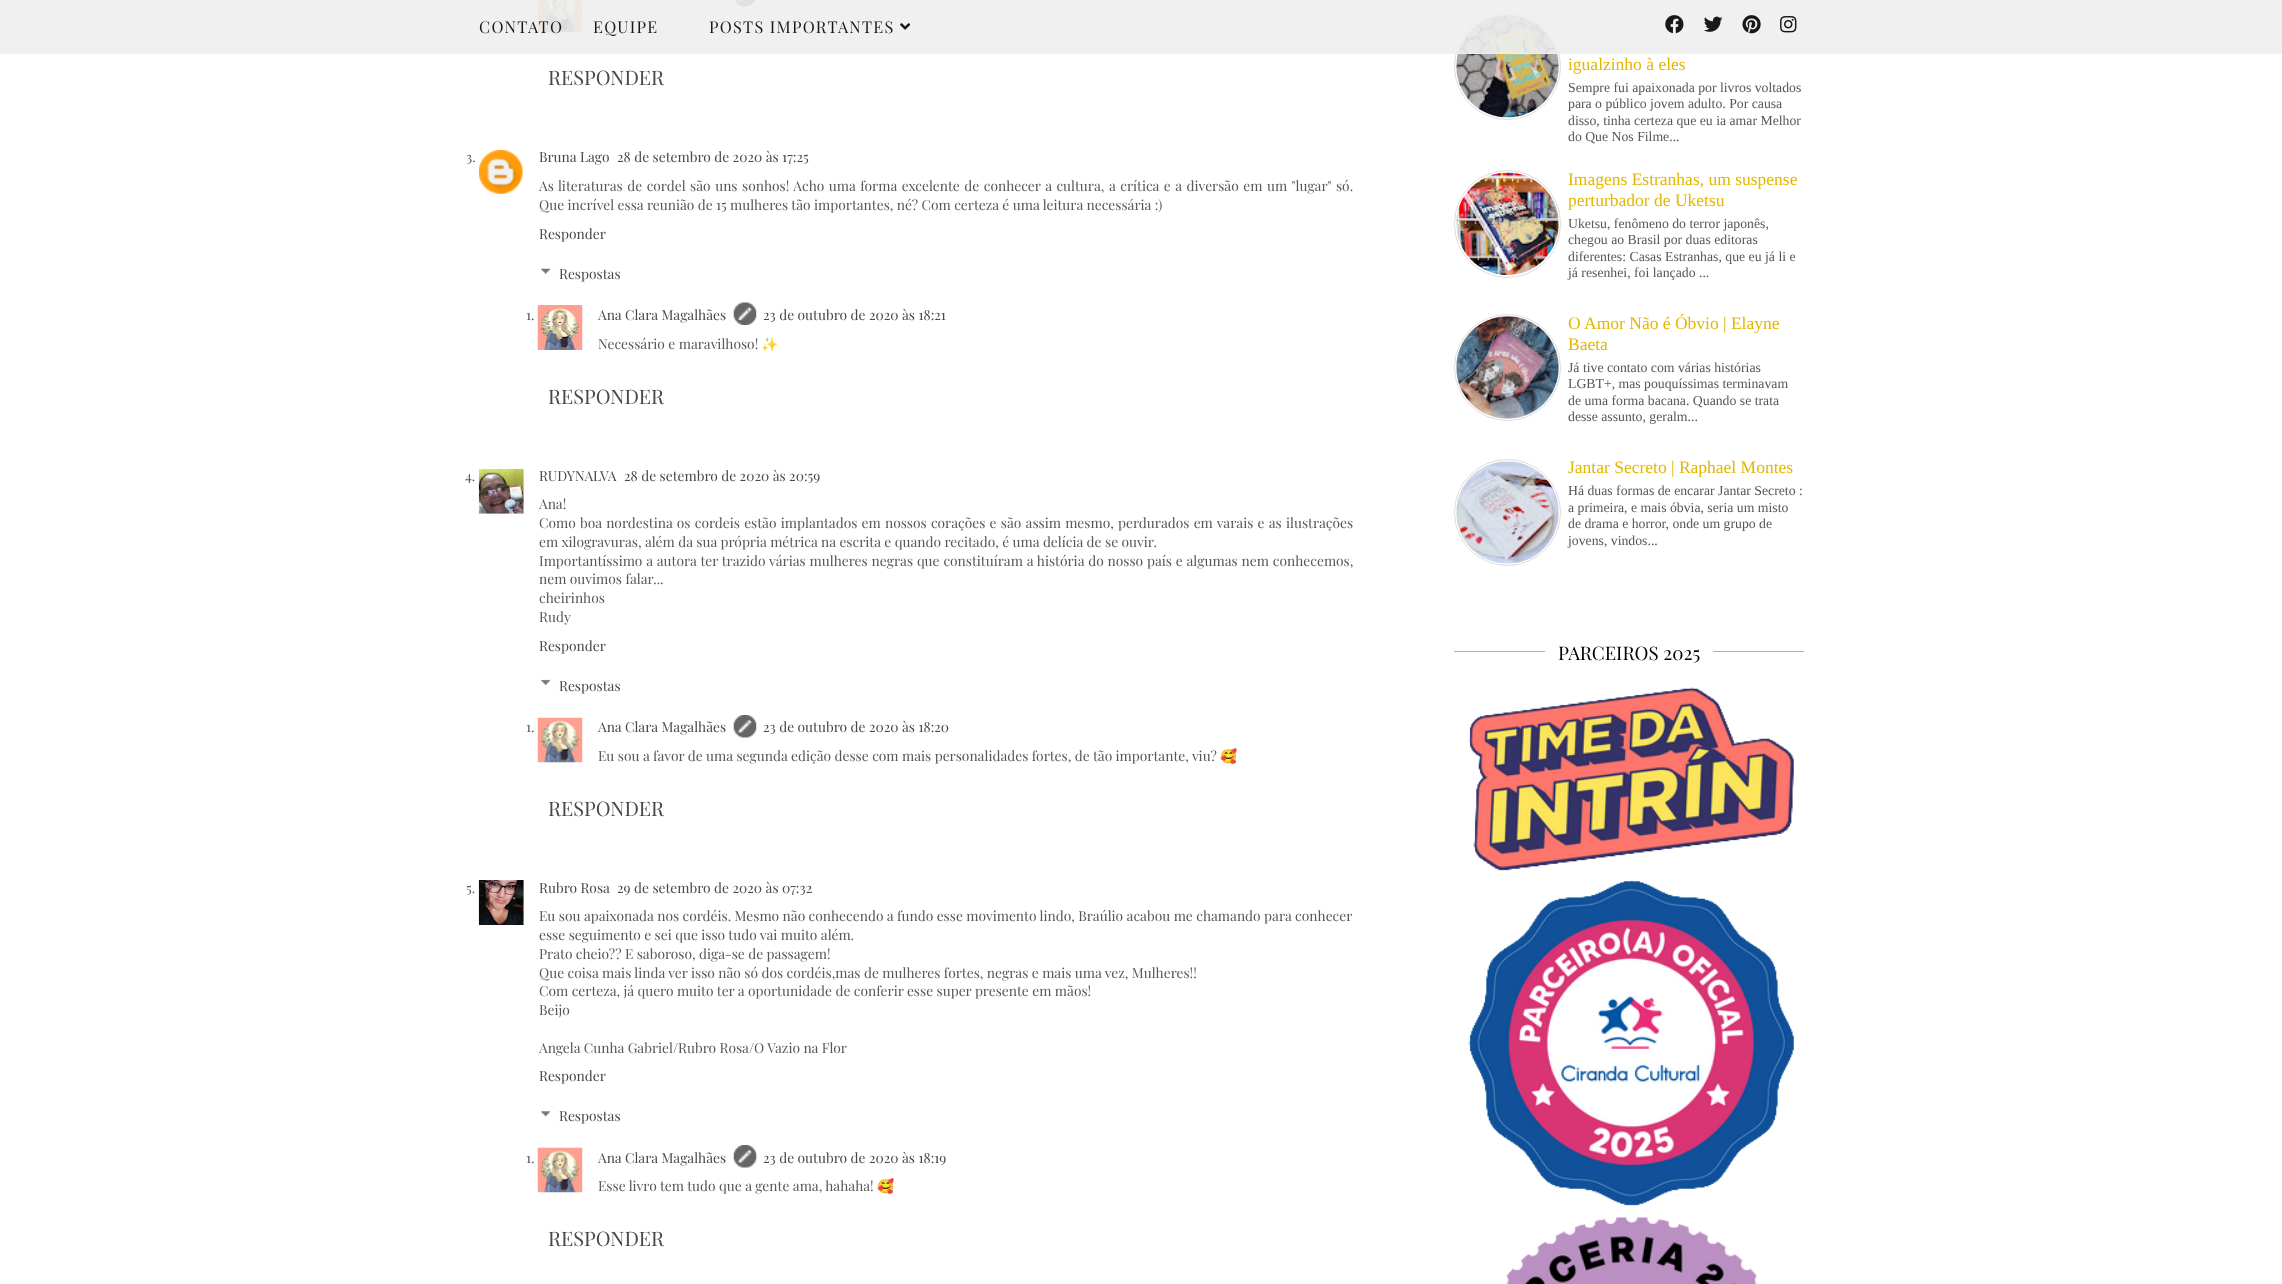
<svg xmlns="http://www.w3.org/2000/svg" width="2282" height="1284">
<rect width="100%" height="100%" fill="#fff"/>
<image x="537" y="0" width="46" height="33" href="media/6.png"/>
<image x="734" y="0" width="22" height="7" href="media/7.png"/>
<circle cx="1507.5" cy="66.5" r="53" fill="none" stroke="#ddd"/>
<image x="1456" y="15" width="103" height="103" href="media/18.png"/>
<rect width="2282" height="54" fill="#eeeeeee6"/>
<rect x="1458" y="53" width="99" height="1" fill="#eeeeeee6"/>
<text x="479" y="33" style="font-family:Playfair Display;font-size:16.25px;letter-spacing:1.25px;fill:#181818">CONTATO</text>
<text x="593" y="33" style="font-family:Playfair Display;font-size:16.25px;letter-spacing:1.25px;fill:#181818">EQUIPE</text>
<text x="709" y="33" style="font-family:Playfair Display;font-size:16.25px;letter-spacing:1.25px;fill:#181818">POSTS IMPORTANTES</text>
<image x="900" y="23" width="11" height="7" href="media/1.png"/>
<image x="1665" y="15" width="19" height="19" href="media/2.png"/>
<image x="1704" y="16" width="19" height="16" href="media/3.png"/>
<image x="1742" y="15" width="19" height="19" href="media/4.png"/>
<image x="1780" y="16" width="17" height="17" href="media/5.png"/>
<text x="548" y="85" style="font-family:Playfair Display;font-size:20px;fill:#484848">RESPONDER</text>
<text x="466" y="162" style="font-family:Playfair Display;font-size:13.75px;fill:#575757">3.</text>
<image x="478" y="150" width="45" height="44" href="media/8.png"/>
<text x="539" y="162" style="font-family:Playfair Display;font-size:13.75px;fill:#484848">Bruna Lago</text>
<text x="617" y="162" style="font-family:Playfair Display;font-size:13.75px;fill:#484848">28 de setembro de 2020 às 17:25</text>
<text x="539" y="191" word-spacing="1.1" style="font-family:Playfair Display;font-size:13.75px;fill:#575757">As literaturas de cordel são uns sonhos! Acho uma forma excelente de conhecer a cultura,</text>
<text x="1109" y="191" word-spacing="1.1" style="font-family:Playfair Display;font-size:13.75px;fill:#575757">a crítica e a diversão em um "lugar" só.</text>
<text x="539" y="210" style="font-family:Playfair Display;font-size:13.75px;fill:#575757">Que incrível essa reunião de 15 mulheres tão importantes, né? Com certeza é uma leitura necessária :)</text>
<text x="539" y="239" style="font-family:Playfair Display;font-size:13.75px;fill:#484848">Responder</text>
<image x="541" y="268" width="9" height="6" href="media/9.png"/>
<text x="559" y="279" style="font-family:Playfair Display;font-size:13.75px;fill:#484848">Respostas</text>
<text x="526" y="320" style="font-family:Playfair Display;font-size:13.75px;fill:#575757">1.</text>
<image x="537" y="305" width="46" height="45" href="media/10.png"/>
<text x="598" y="320" style="font-family:Playfair Display;font-size:13.75px;fill:#484848">Ana Clara Magalhães</text>
<image x="733" y="302" width="24" height="23" href="media/11.png"/>
<text x="763" y="320" style="font-family:Playfair Display;font-size:13.75px;fill:#484848">23 de outubro de 2020 às 18:21</text>
<text x="598" y="349" style="font-family:Playfair Display;font-size:13.75px;fill:#575757">Necessário e maravilhoso!</text>
<text x="761" y="349" style="font-family:Noto Color Emoji;font-size:13.75px;fill:#575757">✨</text>
<text x="548" y="404" style="font-family:Playfair Display;font-size:20px;fill:#484848">RESPONDER</text>
<text x="465" y="481" style="font-family:Playfair Display;font-size:13.75px;fill:#575757">4.</text>
<image x="478" y="468" width="46" height="46" href="media/12.png"/>
<text x="539" y="481" style="font-family:Playfair Display;font-size:13.75px;fill:#484848">RUDYNALVA</text>
<text x="624" y="481" style="font-family:Playfair Display;font-size:13.75px;fill:#484848">28 de setembro de 2020 às 20:59</text>
<text x="539" y="509" style="font-family:Playfair Display;font-size:13.75px;fill:#575757">Ana!</text>
<text x="539" y="528" word-spacing="0.8" style="font-family:Playfair Display;font-size:13.75px;fill:#575757">Como boa nordestina os cordeis estão implantados em nossos corações e são assim mesmo, perdurados em varais e as ilustrações</text>
<text x="539" y="547" style="font-family:Playfair Display;font-size:13.75px;fill:#575757">em xilogravuras, além da sua própria métrica na escrita e quando recitado, é uma delícia de se ouvir.</text>
<text x="539" y="566" word-spacing="0.4" style="font-family:Playfair Display;font-size:13.75px;fill:#575757">Importantíssimo a autora ter trazido várias mulheres negras que constituíram a história do nosso país e algumas nem conhecemos,</text>
<text x="539" y="584" style="font-family:Playfair Display;font-size:13.75px;fill:#575757">nem ouvimos falar...</text>
<text x="539" y="603" style="font-family:Playfair Display;font-size:13.75px;fill:#575757">cheirinhos</text>
<text x="539" y="622" style="font-family:Playfair Display;font-size:13.75px;fill:#575757">Rudy</text>
<text x="539" y="651" style="font-family:Playfair Display;font-size:13.75px;fill:#484848">Responder</text>
<image x="541" y="679" width="9" height="7" href="media/13.png"/>
<text x="559" y="691" style="font-family:Playfair Display;font-size:13.75px;fill:#484848">Respostas</text>
<text x="526" y="732" style="font-family:Playfair Display;font-size:13.75px;fill:#575757">1.</text>
<image x="537" y="717" width="46" height="46" href="media/14.png"/>
<text x="598" y="732" style="font-family:Playfair Display;font-size:13.75px;fill:#484848">Ana Clara Magalhães</text>
<image x="733" y="715" width="24" height="23" href="media/15.png"/>
<text x="763" y="732" style="font-family:Playfair Display;font-size:13.75px;fill:#484848">23 de outubro de 2020 às 18:20</text>
<text x="598" y="761" style="font-family:Playfair Display;font-size:13.75px;fill:#575757">Eu sou a favor de uma segunda edição desse com mais personalidades fortes, de tão importante, viu?</text>
<text x="1220" y="761" style="font-family:Noto Color Emoji;font-size:13.75px;fill:#575757">🥰</text>
<text x="548" y="816" style="font-family:Playfair Display;font-size:20px;fill:#484848">RESPONDER</text>
<text x="466" y="893" style="font-family:Playfair Display;font-size:13.75px;fill:#575757">5.</text>
<image x="478" y="880" width="46" height="45" href="media/16.png"/>
<text x="539" y="893" style="font-family:Playfair Display;font-size:13.75px;fill:#484848">Rubro Rosa</text>
<text x="617" y="893" style="font-family:Playfair Display;font-size:13.75px;fill:#484848">29 de setembro de 2020 às 07:32</text>
<text x="539" y="921" style="font-family:Playfair Display;font-size:13.75px;fill:#575757">Eu sou apaixonada nos cordéis. Mesmo não conhecendo a fundo esse movimento lindo, Braúlio acabou me chamando para conhecer</text>
<text x="539" y="940" style="font-family:Playfair Display;font-size:13.75px;fill:#575757">esse seguimento e sei que isso tudo vai muito além.</text>
<text x="539" y="959" style="font-family:Playfair Display;font-size:13.75px;fill:#575757">Prato cheio?? E saboroso, diga-se de passagem!</text>
<text x="539" y="978" style="font-family:Playfair Display;font-size:13.75px;fill:#575757">Que coisa mais linda ver isso não só dos cordéis,mas de mulheres fortes, negras e mais uma vez, Mulheres!!</text>
<text x="539" y="996" style="font-family:Playfair Display;font-size:13.75px;fill:#575757">Com certeza, já quero muito ter a oportunidade de conferir esse super presente em mãos!</text>
<text x="539" y="1015" style="font-family:Playfair Display;font-size:13.75px;fill:#575757">Beijo</text>
<text x="539" y="1053" style="font-family:Playfair Display;font-size:13.75px;fill:#575757">Angela Cunha Gabriel/Rubro Rosa/O Vazio na Flor</text>
<text x="539" y="1081" style="font-family:Playfair Display;font-size:13.75px;fill:#484848">Responder</text>
<image x="541" y="1111" width="9" height="6" href="media/17.png"/>
<text x="559" y="1121" style="font-family:Playfair Display;font-size:13.75px;fill:#484848">Respostas</text>
<text x="526" y="1163" style="font-family:Playfair Display;font-size:13.75px;fill:#575757">1.</text>
<image x="537" y="1147" width="46" height="46" href="media/14.png"/>
<text x="598" y="1163" style="font-family:Playfair Display;font-size:13.75px;fill:#484848">Ana Clara Magalhães</text>
<image x="733" y="1145" width="24" height="23" href="media/15.png"/>
<text x="763" y="1163" style="font-family:Playfair Display;font-size:13.75px;fill:#484848">23 de outubro de 2020 às 18:19</text>
<text x="598" y="1191" style="font-family:Playfair Display;font-size:13.75px;fill:#575757">Esse livro tem tudo que a gente ama, hahaha!</text>
<text x="877" y="1191" style="font-family:Noto Color Emoji;font-size:13.75px;fill:#575757">🥰</text>
<text x="548" y="1246" style="font-family:Playfair Display;font-size:20px;fill:#484848">RESPONDER</text>
<text x="1568" y="70" style="font-family:Liberation Serif;font-size:17.5px;fill:#e4b600">igualzinho à eles</text>
<text x="1568" y="92" style="font-family:Liberation Serif;font-size:13.75px;fill:#575757">Sempre fui apaixonada por livros voltados</text>
<text x="1568" y="108" style="font-family:Liberation Serif;font-size:13.75px;fill:#575757">para o público jovem adulto. Por causa</text>
<text x="1568" y="125" style="font-family:Liberation Serif;font-size:13.75px;fill:#575757">disso, tinha certeza que eu ia amar Melhor</text>
<text x="1568" y="141" style="font-family:Liberation Serif;font-size:13.75px;fill:#575757">do Que Nos Filme...</text>
<rect x="1454.5" y="170.5" width="106" height="107" rx="53" fill="none" stroke="#ddd"/>
<image x="1456" y="172" width="103" height="103" href="media/19.png"/>
<text x="1568" y="185" style="font-family:Liberation Serif;font-size:17.5px;fill:#e4b600">Imagens Estranhas, um suspense</text>
<text x="1568" y="206" style="font-family:Liberation Serif;font-size:17.5px;fill:#e4b600">perturbador de Uketsu</text>
<text x="1568" y="228" style="font-family:Liberation Serif;font-size:13.75px;fill:#575757">Uketsu, fenômeno do terror japonês,</text>
<text x="1568" y="244" style="font-family:Liberation Serif;font-size:13.75px;fill:#575757">chegou ao Brasil por duas editoras</text>
<text x="1568" y="261" style="font-family:Liberation Serif;font-size:13.75px;fill:#575757">diferentes: Casas Estranhas, que eu já li e</text>
<text x="1568" y="277" style="font-family:Liberation Serif;font-size:13.75px;fill:#575757">já resenhei, foi lançado ...</text>
<circle cx="1507.5" cy="367.5" r="53" fill="none" stroke="#ddd"/>
<image x="1456" y="316" width="103" height="103" href="media/20.png"/>
<text x="1568" y="329" style="font-family:Liberation Serif;font-size:17.5px;fill:#e4b600">O Amor Não é Óbvio | Elayne</text>
<text x="1568" y="350" style="font-family:Liberation Serif;font-size:17.5px;fill:#e4b600">Baeta</text>
<text x="1568" y="372" style="font-family:Liberation Serif;font-size:13.75px;fill:#575757">Já tive contato com várias histórias</text>
<text x="1568" y="388" style="font-family:Liberation Serif;font-size:13.75px;fill:#575757">LGBT+, mas pouquíssimas terminavam</text>
<text x="1568" y="405" style="font-family:Liberation Serif;font-size:13.75px;fill:#575757">de uma forma bacana. Quando se trata</text>
<text x="1568" y="421" style="font-family:Liberation Serif;font-size:13.75px;fill:#575757">desse assunto, geralm...</text>
<circle cx="1507.5" cy="512.5" r="53" fill="none" stroke="#ddd"/>
<image x="1456" y="461" width="103" height="103" href="media/21.png"/>
<text x="1568" y="473" style="font-family:Liberation Serif;font-size:17.5px;fill:#e4b600">Jantar Secreto | Raphael Montes</text>
<text x="1568" y="495" style="font-family:Liberation Serif;font-size:13.75px;fill:#575757">Há duas formas de encarar Jantar Secreto :</text>
<text x="1568" y="512" style="font-family:Liberation Serif;font-size:13.75px;fill:#575757">a primeira, e mais óbvia, seria um misto</text>
<text x="1568" y="528" style="font-family:Liberation Serif;font-size:13.75px;fill:#575757">de drama e horror, onde um grupo de</text>
<text x="1568" y="545" style="font-family:Liberation Serif;font-size:13.75px;fill:#575757">jovens, vindos...</text>
<rect x="1454" y="651" width="350" height="1" fill="#e4b600"/>
<rect x="1545" y="651" width="168" height="1" fill="#fff"/>
<text x="1558" y="660" style="font-family:Playfair Display;font-size:18.75px;fill:#000">PARCEIROS 2025</text>
<image x="1468" y="687" width="326" height="597" href="media/22.png"/>
</svg>
